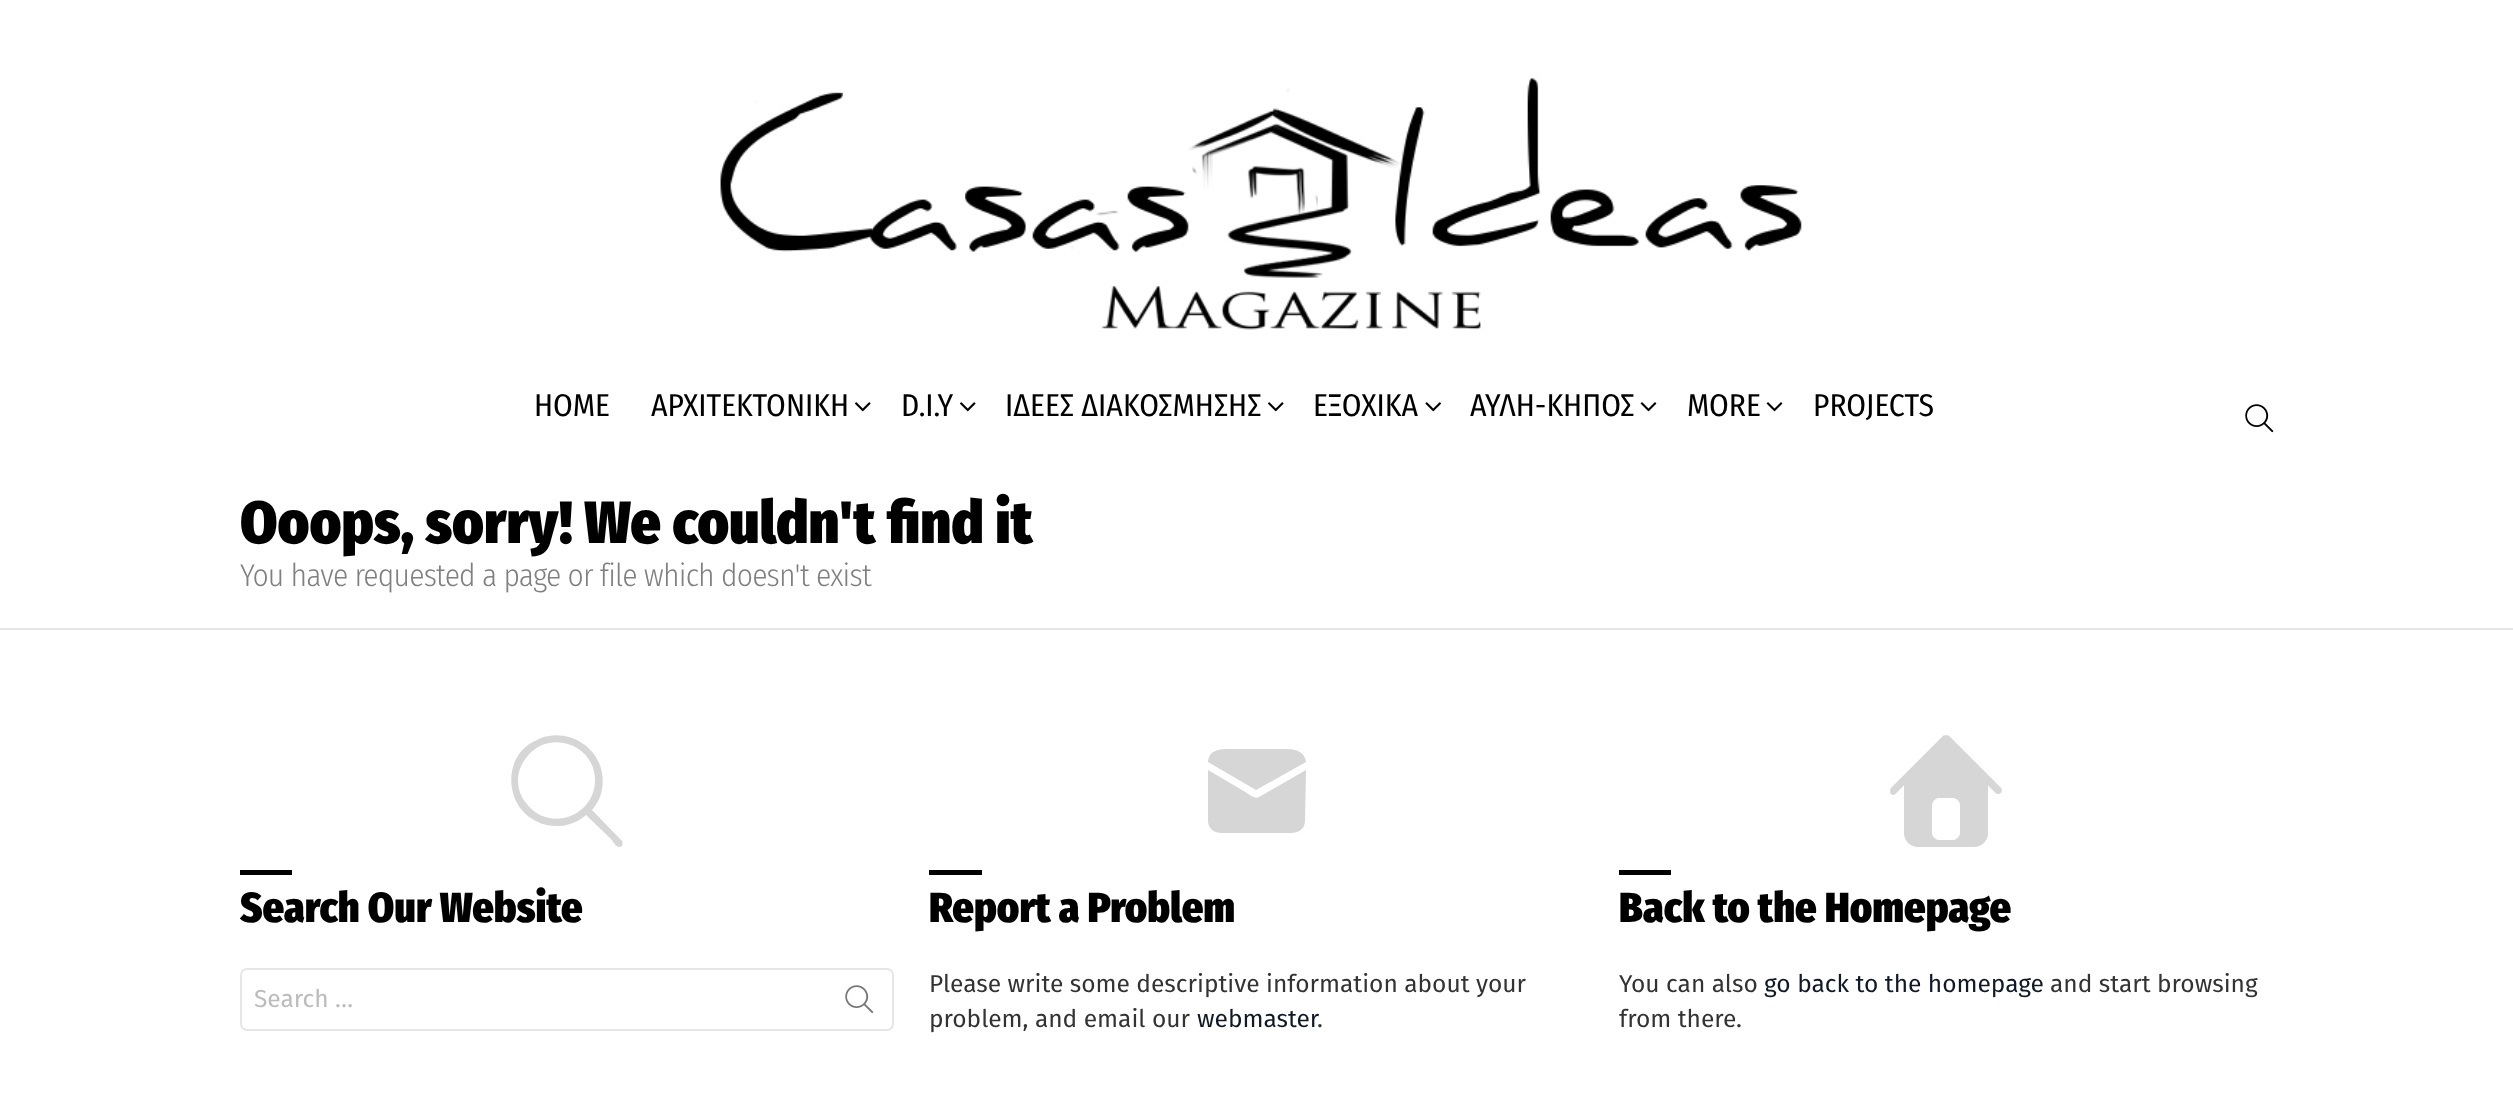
<svg xmlns="http://www.w3.org/2000/svg" width="2513" height="1113">
<rect width="100%" height="100%" fill="#fff"/>
<image x="720" y="77" width="1082" height="253" href="media/1.png"/>
<text x="534" y="416" style="font-family:Fira Sans Condensed;font-size:31.5px;fill:#000">HOME</text>
<text x="651" y="416" style="font-family:Fira Sans Condensed;font-size:31.5px;fill:#000">ΑΡΧΙΤΕΚΤΟΝΙΚΗ</text>
<image x="855" y="402" width="16" height="10" href="media/2.png"/>
<text x="901" y="416" style="font-family:Fira Sans Condensed;font-size:31.5px;fill:#000">D.I.Y</text>
<image x="960" y="402" width="16" height="10" href="media/2.png"/>
<text x="1005" y="416" style="font-family:Fira Sans Condensed;font-size:31.5px;fill:#000">ΙΔΕΕΣ ΔΙΑΚΟΣΜΗΣΗΣ</text>
<image x="1268" y="402" width="16" height="10" href="media/2.png"/>
<text x="1313" y="416" style="font-family:Fira Sans Condensed;font-size:31.5px;fill:#000">ΕΞΟΧΙΚΑ</text>
<image x="1425" y="402" width="16" height="10" href="media/3.png"/>
<text x="1470" y="416" style="font-family:Fira Sans Condensed;font-size:31.5px;fill:#000">ΑΥΛΗ-ΚΗΠΟΣ</text>
<image x="1640" y="402" width="17" height="10" href="media/4.png"/>
<text x="1687" y="416" style="font-family:Fira Sans Condensed;font-size:31.5px;fill:#000">MORE</text>
<image x="1766" y="402" width="17" height="10" href="media/4.png"/>
<text x="1813" y="416" style="font-family:Fira Sans Condensed;font-size:31.5px;fill:#000">PROJECTS</text>
<image x="2245" y="404" width="29" height="29" href="media/5.png"/>
<text x="240" y="543" style="font-family:Fira Sans Condensed;font-size:59.5px;font-weight:900;fill:#000">Ooops, sorry! We couldn't find it</text>
<text x="240" y="586" style="font-family:Fira Sans Condensed;font-size:31.5px;font-weight:300;letter-spacing:-0.8px;fill:#808080">You have requested a page or file which doesn't exist</text>
<rect y="628" width="2513" height="2" fill="#e6e6e6"/>
<path d="M622 841l-30-31c5-6 9-13 10-21c7-39-36-67-69-47c-10 5-17 14-20 25c-4 14-1 31 8 42c16 20 46 23 65 6l26 25c1 2 4 7 8 7c3-1 3-4 2-6zm-104-61c0-8 3-16 8-22c22-30 69-14 69 22c0 37-47 53-69 23c-5-6-8-14-8-23z" fill="#d6d6d6"/>
<rect x="240" y="870" width="52" height="5" fill="#000"/>
<text x="240" y="922" style="font-family:Fira Sans Condensed;font-size:42px;font-weight:900;fill:#000">Search Our Website</text>
<rect x="241" y="969" width="652" height="61" rx="6" fill="none" stroke="#e6e6e6" stroke-width="2"/>
<text x="254" y="1007" style="font-family:Fira Sans;font-size:24.5px;fill:#bcbcbc">Search …</text>
<image x="845" y="985" width="29" height="29" href="media/6.png"/>
<path d="M1256 790l50-28c-2-14-16-13-26-13h-47c-10 0-24-1-25 13zm3 7c-4 3-12-4-12-4l-39-23v51c1 14 15 12 25 12h47c10 0 24 2 25-12l1-51z" fill="#d6d6d6"/>
<rect x="929" y="870" width="53" height="5" fill="#000"/>
<text x="929" y="922" style="font-family:Fira Sans Condensed;font-size:42px;font-weight:900;fill:#000">Report a Problem</text>
<text x="929" y="992" style="font-family:Fira Sans;font-size:24.5px;fill:#333">Please write some descriptive information about your</text>
<text x="929" y="1027" style="font-family:Fira Sans;font-size:24.5px;fill:#333">problem, and email our</text>
<text x="1197" y="1027" style="font-family:Fira Sans;font-size:24.5px;fill:#101925">webmaster</text>
<text x="1317" y="1027" style="font-family:Fira Sans;font-size:24.5px;fill:#333">.</text>
<image x="1890" y="735" width="112" height="112" href="media/7.png"/>
<rect x="1619" y="870" width="52" height="5" fill="#000"/>
<text x="1619" y="922" style="font-family:Fira Sans Condensed;font-size:42px;font-weight:900;fill:#000">Back to the Homepage</text>
<text x="1619" y="992" style="font-family:Fira Sans;font-size:24.5px;fill:#333">You can also</text>
<text x="1764" y="992" style="font-family:Fira Sans;font-size:24.5px;fill:#101925">go back to the homepage</text>
<text x="2050" y="992" style="font-family:Fira Sans;font-size:24.5px;fill:#333">and start browsing</text>
<text x="1619" y="1027" style="font-family:Fira Sans;font-size:24.5px;fill:#333">from there.</text>
</svg>
